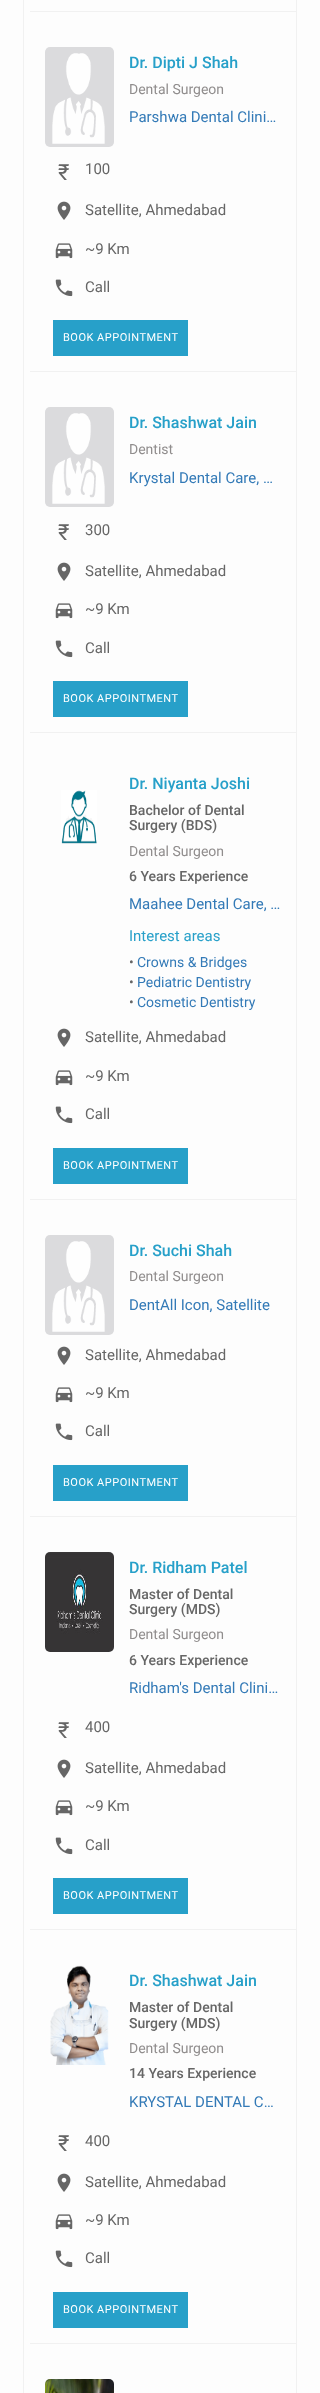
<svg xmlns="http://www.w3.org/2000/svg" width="320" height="2393">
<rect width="100%" height="100%" fill="#fdfdfd"/>
<rect x="23.5" y="-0.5" width="273" height="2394" fill="none" stroke="#f1f1f1"/>
<rect x="30" y="11" width="266" height="1" fill="#f1f1f1"/>
<rect x="30" y="371" width="266" height="1" fill="#f1f1f1"/>
<image x="45" y="47" width="69" height="100" href="media/1.png"/>
<text x="129" y="68" style="font-family:Roboto;font-size:16px;font-weight:500;fill:#27a0c9">Dr. Dipti J Shah</text>
<text x="129" y="94" style="font-family:Roboto;font-size:14px;fill:#908d8d">Dental Surgeon</text>
<text x="129" y="122" style="font-family:Roboto;font-size:15px;fill:#337ab7">Parshwa Dental Clini…</text>
<text x="58" y="180" style="font-family:Roboto;font-size:22px;fill:#666">₹</text>
<text x="85" y="174" style="font-family:Roboto;font-size:15px;fill:#666">100</text>
<image x="57" y="201" width="14" height="19" href="media/2.png"/>
<text x="85" y="215" style="font-family:Roboto;font-size:15px;fill:#666">Satellite, Ahmedabad</text>
<image x="55" y="243" width="18" height="16" href="media/3.png"/>
<text x="85" y="254" style="font-family:Roboto;font-size:15px;fill:#666">~9 Km</text>
<image x="55" y="279" width="18" height="18" href="media/4.png"/>
<text x="85" y="292" style="font-family:Roboto;font-size:15px;fill:#666">Call</text>
<rect x="53" y="320" width="135" height="36" fill="#27a0c9"/>
<text x="63" y="341" style="font-family:Roboto;font-size:11px;letter-spacing:0.5px;fill:#fff">BOOK APPOINTMENT</text>
<rect x="30" y="732" width="266" height="1" fill="#f1f1f1"/>
<image x="45" y="407" width="69" height="100" href="media/1.png"/>
<text x="129" y="428" style="font-family:Roboto;font-size:16px;font-weight:500;fill:#27a0c9">Dr. Shashwat Jain</text>
<text x="129" y="454" style="font-family:Roboto;font-size:14px;fill:#908d8d">Dentist</text>
<text x="129" y="483" style="font-family:Roboto;font-size:15px;fill:#337ab7">Krystal Dental Care, …</text>
<text x="58" y="540" style="font-family:Roboto;font-size:22px;fill:#666">₹</text>
<text x="85" y="535" style="font-family:Roboto;font-size:15px;fill:#666">300</text>
<image x="57" y="562" width="14" height="19" href="media/2.png"/>
<text x="85" y="576" style="font-family:Roboto;font-size:15px;fill:#666">Satellite, Ahmedabad</text>
<image x="55" y="603" width="18" height="16" href="media/3.png"/>
<text x="85" y="614" style="font-family:Roboto;font-size:15px;fill:#666">~9 Km</text>
<image x="55" y="640" width="18" height="18" href="media/4.png"/>
<text x="85" y="653" style="font-family:Roboto;font-size:15px;fill:#666">Call</text>
<rect x="53" y="681" width="135" height="36" fill="#27a0c9"/>
<text x="63" y="702" style="font-family:Roboto;font-size:11px;letter-spacing:0.5px;fill:#fff">BOOK APPOINTMENT</text>
<rect x="30" y="1199" width="266" height="1" fill="#f1f1f1"/>
<image x="61" y="790" width="36" height="54" href="media/5.png"/>
<text x="129" y="789" style="font-family:Roboto;font-size:16px;font-weight:500;fill:#27a0c9">Dr. Niyanta Joshi</text>
<text x="129" y="815" style="font-family:Roboto;font-size:14px;font-weight:500;fill:#666">Bachelor of Dental</text>
<text x="129" y="830" style="font-family:Roboto;font-size:14px;font-weight:500;fill:#666">Surgery (BDS)</text>
<text x="129" y="856" style="font-family:Roboto;font-size:14px;fill:#908d8d">Dental Surgeon</text>
<text x="129" y="881" style="font-family:Roboto;font-size:14px;font-weight:500;fill:#666">6 Years Experience</text>
<text x="129" y="909" style="font-family:Roboto;font-size:15px;fill:#337ab7">Maahee Dental Care, …</text>
<text x="129" y="941" style="font-family:Roboto;font-size:15px;fill:#27a0c9">Interest areas</text>
<text x="129" y="967" style="font-family:Roboto;font-size:14px;fill:#666">•</text>
<text x="137" y="967" style="font-family:Roboto;font-size:14px;fill:#337ab7">Crowns &amp; Bridges</text>
<text x="129" y="987" style="font-family:Roboto;font-size:14px;fill:#666">•</text>
<text x="137" y="987" style="font-family:Roboto;font-size:14px;fill:#337ab7">Pediatric Dentistry</text>
<text x="129" y="1007" style="font-family:Roboto;font-size:14px;fill:#666">•</text>
<text x="137" y="1007" style="font-family:Roboto;font-size:14px;fill:#337ab7">Cosmetic Dentistry</text>
<image x="57" y="1028" width="14" height="19" href="media/2.png"/>
<text x="85" y="1042" style="font-family:Roboto;font-size:15px;fill:#666">Satellite, Ahmedabad</text>
<image x="55" y="1070" width="18" height="16" href="media/3.png"/>
<text x="85" y="1081" style="font-family:Roboto;font-size:15px;fill:#666">~9 Km</text>
<image x="55" y="1106" width="18" height="18" href="media/4.png"/>
<text x="85" y="1119" style="font-family:Roboto;font-size:15px;fill:#666">Call</text>
<rect x="53" y="1148" width="135" height="36" fill="#27a0c9"/>
<text x="63" y="1169" style="font-family:Roboto;font-size:11px;letter-spacing:0.5px;fill:#fff">BOOK APPOINTMENT</text>
<rect x="30" y="1516" width="266" height="1" fill="#f1f1f1"/>
<image x="45" y="1235" width="69" height="100" href="media/1.png"/>
<text x="129" y="1256" style="font-family:Roboto;font-size:16px;font-weight:500;fill:#27a0c9">Dr. Suchi Shah</text>
<text x="129" y="1281" style="font-family:Roboto;font-size:14px;fill:#908d8d">Dental Surgeon</text>
<text x="129" y="1310" style="font-family:Roboto;font-size:15px;fill:#337ab7">DentAll Icon, Satellite</text>
<image x="57" y="1346" width="14" height="19" href="media/2.png"/>
<text x="85" y="1360" style="font-family:Roboto;font-size:15px;fill:#666">Satellite, Ahmedabad</text>
<image x="55" y="1387" width="18" height="16" href="media/3.png"/>
<text x="85" y="1398" style="font-family:Roboto;font-size:15px;fill:#666">~9 Km</text>
<image x="55" y="1423" width="18" height="18" href="media/4.png"/>
<text x="85" y="1436" style="font-family:Roboto;font-size:15px;fill:#666">Call</text>
<rect x="53" y="1465" width="135" height="36" fill="#27a0c9"/>
<text x="63" y="1486" style="font-family:Roboto;font-size:11px;letter-spacing:0.5px;fill:#fff">BOOK APPOINTMENT</text>
<rect x="30" y="1929" width="266" height="1" fill="#f1f1f1"/>
<image x="45" y="1552" width="69" height="100" href="media/6.png"/>
<text x="129" y="1573" style="font-family:Roboto;font-size:16px;font-weight:500;fill:#27a0c9">Dr. Ridham Patel</text>
<text x="129" y="1599" style="font-family:Roboto;font-size:14px;font-weight:500;fill:#666">Master of Dental</text>
<text x="129" y="1614" style="font-family:Roboto;font-size:14px;font-weight:500;fill:#666">Surgery (MDS)</text>
<text x="129" y="1639" style="font-family:Roboto;font-size:14px;fill:#908d8d">Dental Surgeon</text>
<text x="129" y="1665" style="font-family:Roboto;font-size:14px;font-weight:500;fill:#666">6 Years Experience</text>
<text x="129" y="1693" style="font-family:Roboto;font-size:15px;fill:#337ab7">Ridham's Dental Clini…</text>
<text x="58" y="1738" style="font-family:Roboto;font-size:22px;fill:#666">₹</text>
<text x="85" y="1732" style="font-family:Roboto;font-size:15px;fill:#666">400</text>
<image x="57" y="1759" width="14" height="19" href="media/2.png"/>
<text x="85" y="1773" style="font-family:Roboto;font-size:15px;fill:#666">Satellite, Ahmedabad</text>
<image x="55" y="1800" width="18" height="16" href="media/3.png"/>
<text x="85" y="1811" style="font-family:Roboto;font-size:15px;fill:#666">~9 Km</text>
<image x="55" y="1837" width="18" height="18" href="media/4.png"/>
<text x="85" y="1850" style="font-family:Roboto;font-size:15px;fill:#666">Call</text>
<rect x="53" y="1878" width="135" height="36" fill="#27a0c9"/>
<text x="63" y="1899" style="font-family:Roboto;font-size:11px;letter-spacing:0.5px;fill:#fff">BOOK APPOINTMENT</text>
<rect x="30" y="2343" width="266" height="1" fill="#f1f1f1"/>
<image x="50" y="1965" width="59" height="100" href="media/7.png"/>
<text x="129" y="1986" style="font-family:Roboto;font-size:16px;font-weight:500;fill:#27a0c9">Dr. Shashwat Jain</text>
<text x="129" y="2012" style="font-family:Roboto;font-size:14px;font-weight:500;fill:#666">Master of Dental</text>
<text x="129" y="2028" style="font-family:Roboto;font-size:14px;font-weight:500;fill:#666">Surgery (MDS)</text>
<text x="129" y="2053" style="font-family:Roboto;font-size:14px;fill:#908d8d">Dental Surgeon</text>
<text x="129" y="2078" style="font-family:Roboto;font-size:14px;font-weight:500;fill:#666">14 Years Experience</text>
<text x="129" y="2107" style="font-family:Roboto;font-size:15px;fill:#337ab7">KRYSTAL DENTAL C…</text>
<text x="58" y="2151" style="font-family:Roboto;font-size:22px;fill:#666">₹</text>
<text x="85" y="2146" style="font-family:Roboto;font-size:15px;fill:#666">400</text>
<image x="57" y="2173" width="14" height="19" href="media/2.png"/>
<text x="85" y="2187" style="font-family:Roboto;font-size:15px;fill:#666">Satellite, Ahmedabad</text>
<image x="55" y="2214" width="18" height="16" href="media/3.png"/>
<text x="85" y="2225" style="font-family:Roboto;font-size:15px;fill:#666">~9 Km</text>
<image x="55" y="2250" width="18" height="18" href="media/4.png"/>
<text x="85" y="2263" style="font-family:Roboto;font-size:15px;fill:#666">Call</text>
<rect x="53" y="2292" width="135" height="36" fill="#27a0c9"/>
<text x="63" y="2313" style="font-family:Roboto;font-size:11px;letter-spacing:0.5px;fill:#fff">BOOK APPOINTMENT</text>
<image x="45" y="2379" width="69" height="14" href="media/8.png"/>
</svg>
